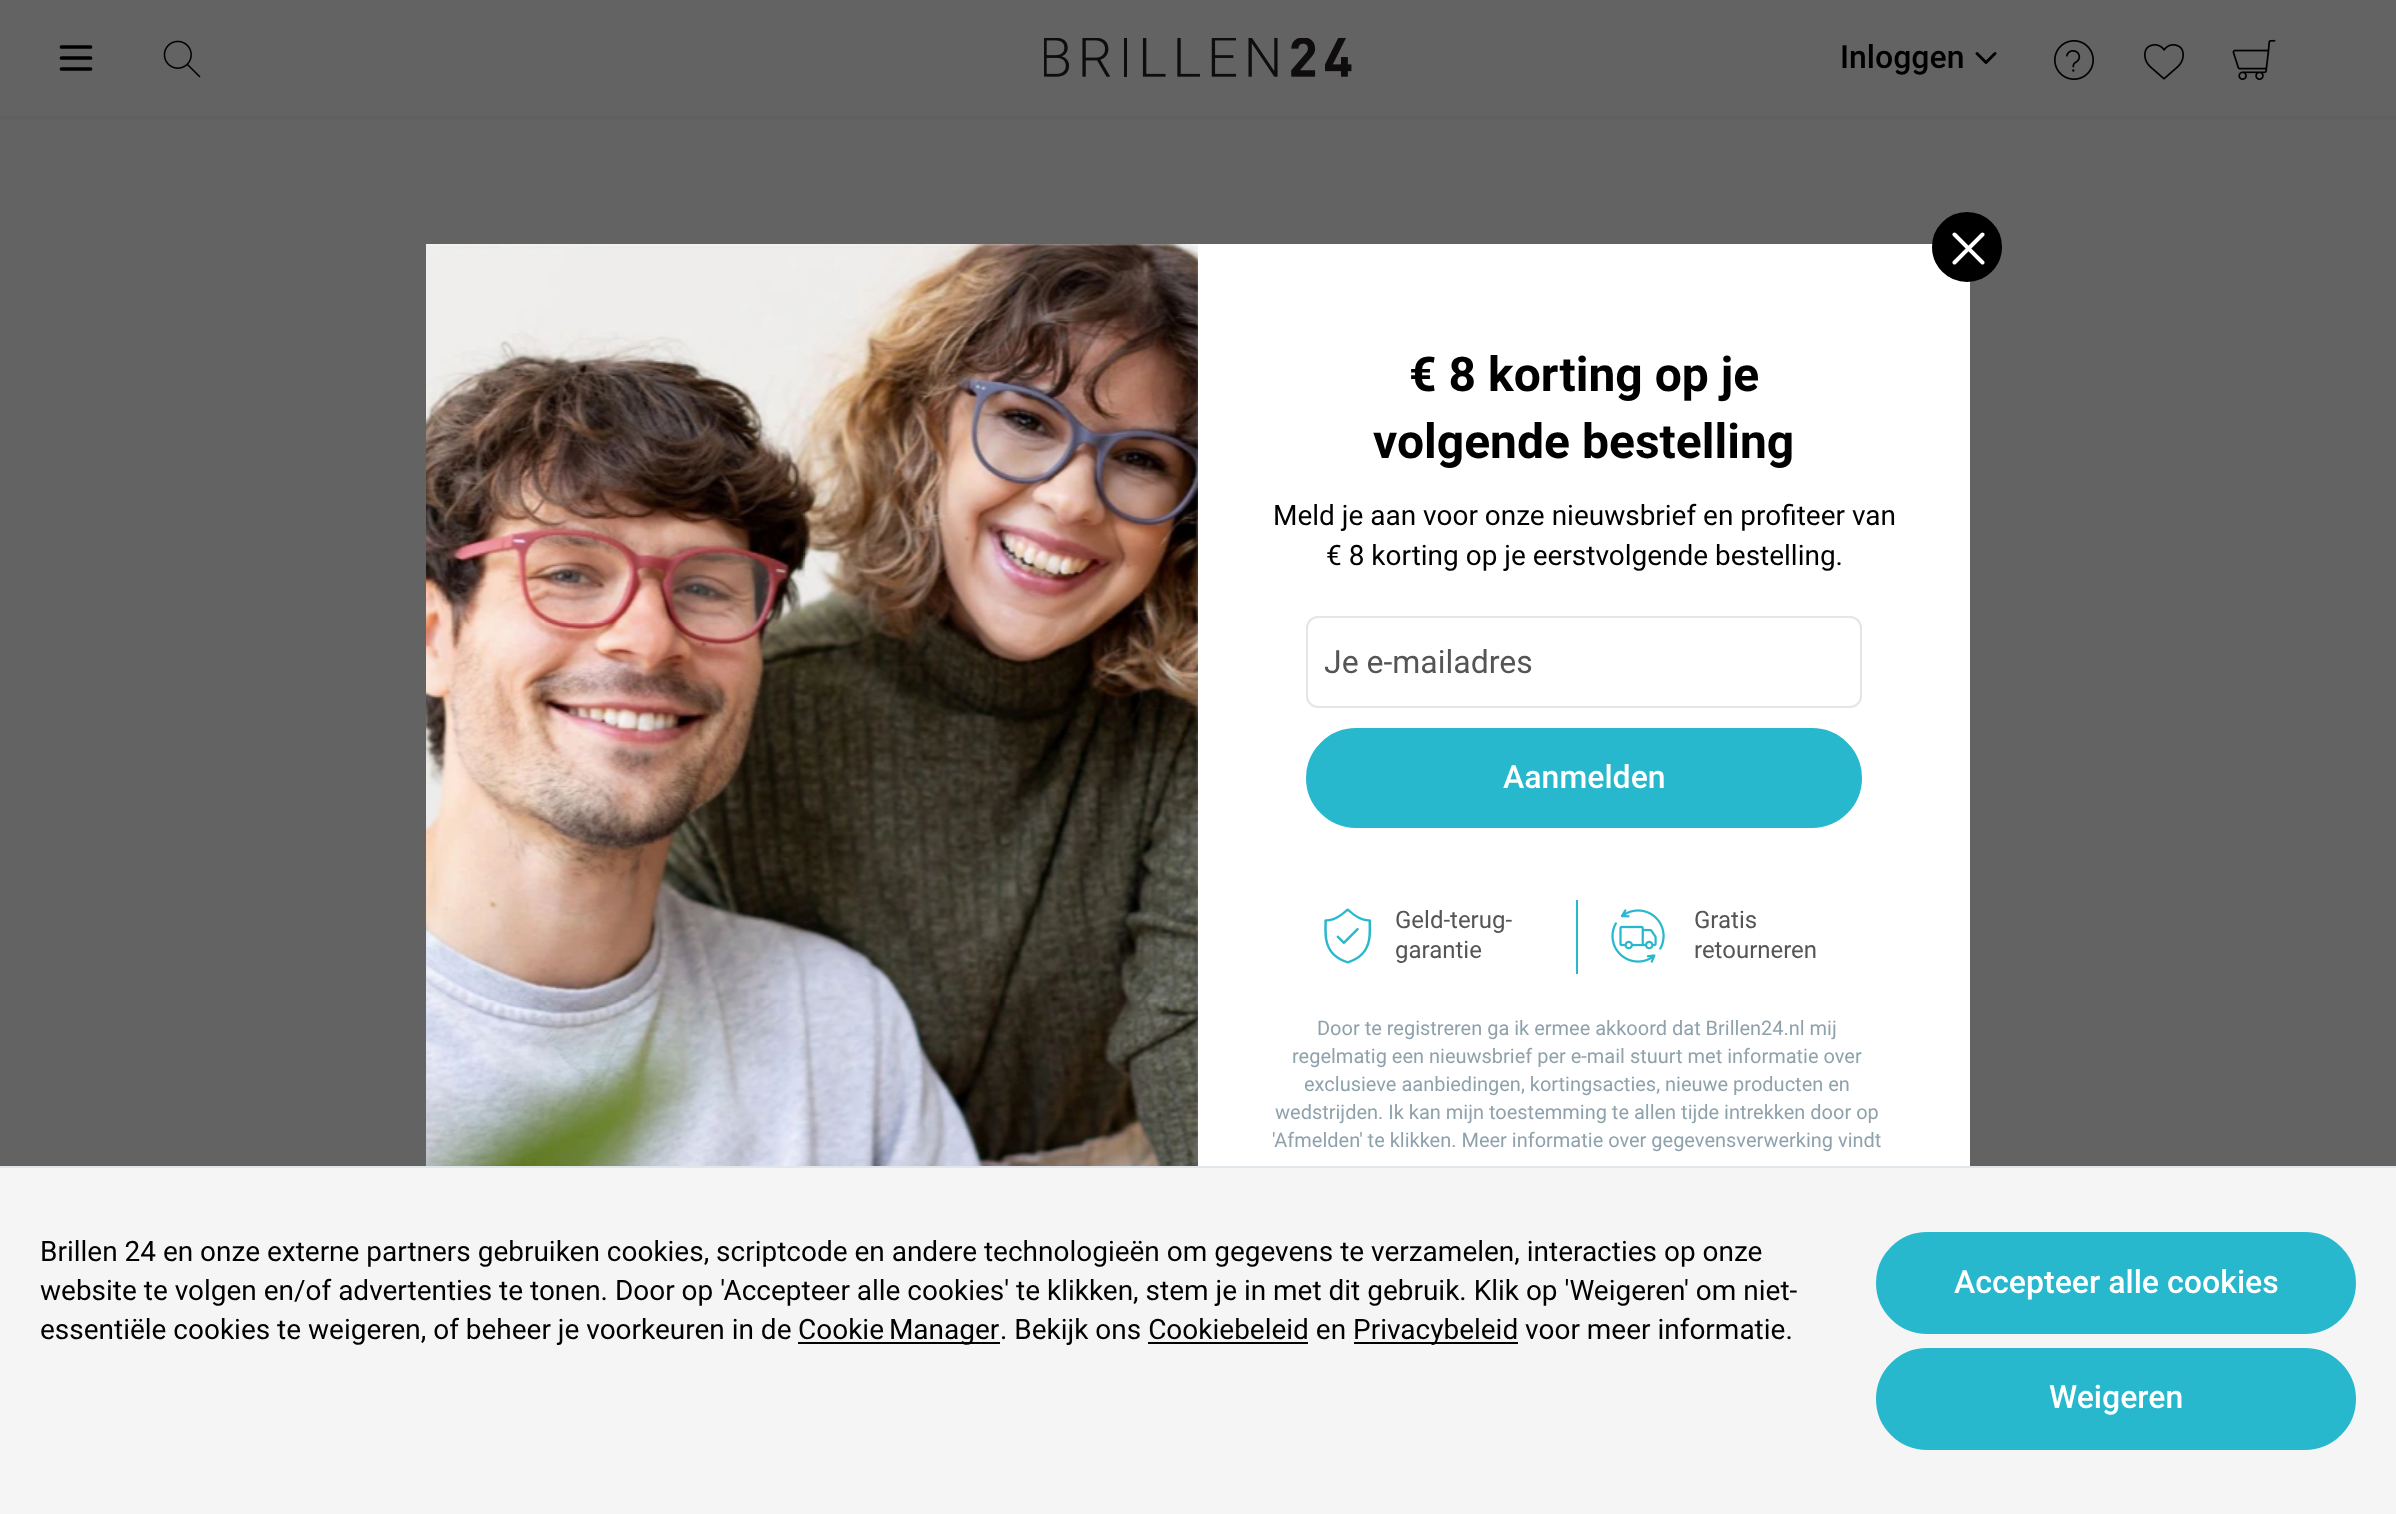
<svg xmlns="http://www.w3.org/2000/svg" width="2396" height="1514">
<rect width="100%" height="100%" fill="#636363"/>
<rect y="116" width="2396" height="4" fill="#606060"/>
<path d="M61.5 47h29m-29 11h29m-29 11h29" fill="none" stroke="#000" stroke-width="3.7" stroke-linecap="round"/>
<image x="163" y="40" width="38" height="38" href="media/1.png"/>
<image x="1044" y="38" width="308" height="39" href="media/2.png"/>
<text x="1840" y="68" style="font-family:Roboto;font-size:32px;font-weight:500;fill:#000">Inloggen</text>
<path d="M1977 53.5l9 9l9-9" fill="none" stroke="#000" stroke-width="3" stroke-linecap="round" stroke-linejoin="round"/>
<image x="2054" y="40" width="40" height="40" href="media/3.png"/>
<image x="2144" y="44" width="40" height="36" href="media/4.png"/>
<image x="2232" y="39" width="44" height="41" href="media/5.png"/>
<rect y="1168" width="2396" height="346" fill="#f5f5f5"/>
<rect y="1166" width="2396" height="2" fill="#e1e6ea"/>
<text x="40" y="1261" style="font-family:Roboto;font-size:28px;fill:#000">Brillen 24 en onze externe partners gebruiken cookies, scriptcode en andere technologieën om gegevens te verzamelen, interacties op onze</text>
<text x="40" y="1300" style="font-family:Roboto;font-size:28px;fill:#000">website te volgen en/of advertenties te tonen. Door op 'Accepteer alle cookies' te klikken, stem je in met dit gebruik. Klik op 'Weigeren' om niet-</text>
<text x="40" y="1339" style="font-family:Roboto;font-size:28px;fill:#000">essentiële cookies te weigeren, of beheer je voorkeuren in de</text>
<rect x="798" y="1342" width="202" height="2" fill="#000"/>
<text x="798" y="1339" word-spacing="-2" style="font-family:Roboto;font-size:28px;fill:#000">Cookie Manager</text>
<text x="1000" y="1339" style="font-family:Roboto;font-size:28px;fill:#000">. Bekijk ons Cookiebeleid en</text>
<rect x="1354" y="1342" width="164" height="2" fill="#000"/>
<text x="1353" y="1339" style="font-family:Roboto;font-size:28px;fill:#000">Privacybeleid voor meer informatie.</text>
<rect x="1148" y="1342" width="160" height="2" fill="#000"/>
<rect x="1877" y="1233" width="478" height="100" rx="50" fill="#28b8ce" stroke="#28b8ce" stroke-width="2"/>
<text x="1954" y="1293" style="font-family:Roboto;font-size:32px;font-weight:500;fill:#fff">Accepteer alle cookies</text>
<rect x="1877" y="1349" width="478" height="100" rx="50" fill="#28b8ce" stroke="#28b8ce" stroke-width="2"/>
<text x="2049" y="1408" style="font-family:Roboto;font-size:32px;font-weight:500;fill:#fff">Weigeren</text>
<rect x="1196" y="244" width="774" height="922" fill="#fff"/>
<circle cx="1967" cy="247" r="34" fill="#000" stroke="#000" stroke-width="2"/>
<path d="M1982.5 234.5l-28 28m0-28l28 28" fill="none" stroke="#fff" stroke-width="4" stroke-linecap="round" stroke-linejoin="round"/>
<image x="426" y="244" width="772" height="922" href="media/6.png"/>
<text x="1409" y="391" style="font-family:Roboto;font-size:48px;font-weight:bold;fill:#000">€ 8 korting op je</text>
<text x="1373" y="458" style="font-family:Roboto;font-size:48px;font-weight:bold;fill:#000">volgende bestelling</text>
<text x="1273" y="525" style="font-family:Roboto;font-size:28px;fill:#000">Meld je aan voor onze nieuwsbrief en profiteer van</text>
<text x="1326" y="565" style="font-family:Roboto;font-size:28px;fill:#000">€ 8 korting op je eerstvolgende bestelling.</text>
<rect x="1307" y="617" width="554" height="90" rx="11" fill="none" stroke="#e1e6ea" stroke-width="2"/>
<text x="1324" y="673" style="font-family:Roboto;font-size:32px;fill:#555">Je e-mailadres</text>
<rect x="1307" y="729" width="554" height="98" rx="49" fill="#28b8ce" stroke="#28b8ce" stroke-width="2"/>
<text x="1503" y="788" style="font-family:Roboto;font-size:32px;font-weight:500;fill:#fff">Aanmelden</text>
<rect x="1576" y="900" width="2" height="74" fill="#28b8ce"/>
<image x="1324" y="908" width="48" height="56" href="media/7.png"/>
<text x="1395" y="928" style="font-family:Roboto;font-size:24px;fill:#555">Geld-terug-</text>
<text x="1395" y="958" style="font-family:Roboto;font-size:24px;fill:#555">garantie</text>
<image x="1611" y="909" width="54" height="54" href="media/8.png"/>
<text x="1694" y="928" style="font-family:Roboto;font-size:24px;fill:#555">Gratis</text>
<text x="1694" y="958" style="font-family:Roboto;font-size:24px;fill:#555">retourneren</text>
<text x="1317" y="1035" style="font-family:Roboto;font-size:20px;fill:#8fa2ac">Door te registreren ga ik ermee akkoord dat Brillen24.nl mij</text>
<text x="1292" y="1063" style="font-family:Roboto;font-size:20px;fill:#8fa2ac">regelmatig een nieuwsbrief per e-mail stuurt met informatie over</text>
<text x="1304" y="1091" style="font-family:Roboto;font-size:20px;fill:#8fa2ac">exclusieve aanbiedingen, kortingsacties, nieuwe producten en</text>
<text x="1275" y="1119" style="font-family:Roboto;font-size:20px;fill:#8fa2ac">wedstrijden. Ik kan mijn toestemming te allen tijde intrekken door op</text>
<text x="1272" y="1147" style="font-family:Roboto;font-size:20px;fill:#8fa2ac">'Afmelden' te klikken. Meer informatie over gegevensverwerking vindt</text>
</svg>
